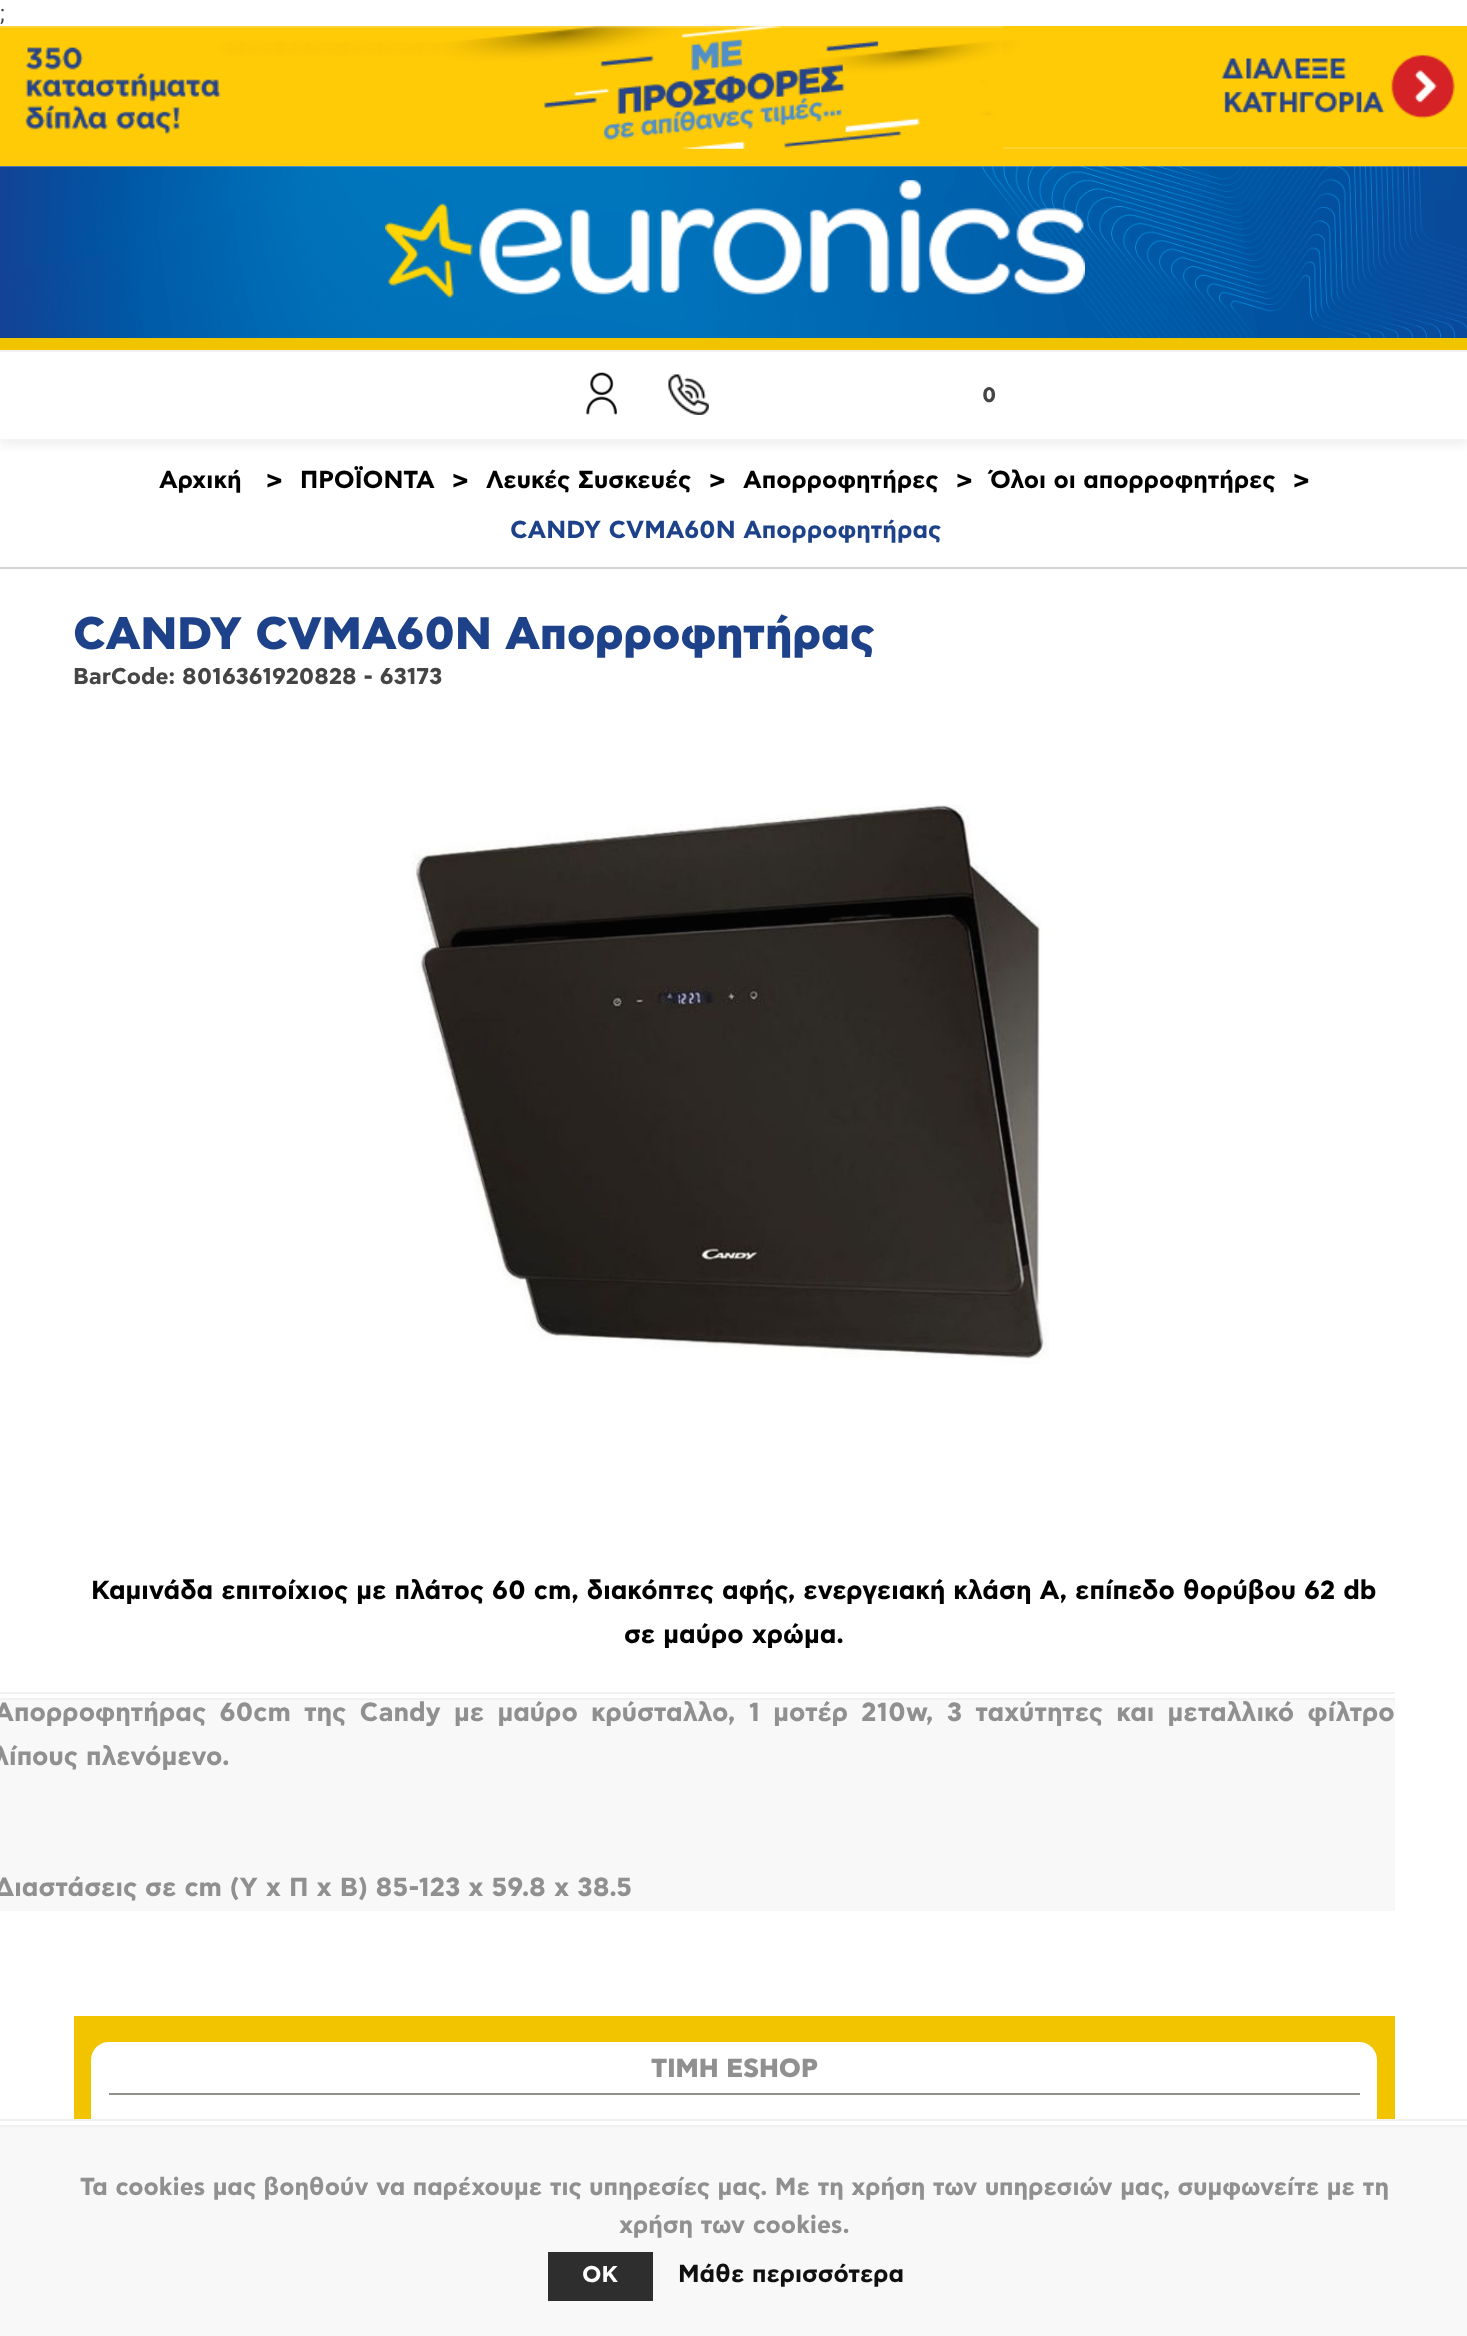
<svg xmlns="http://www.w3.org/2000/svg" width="1467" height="2336">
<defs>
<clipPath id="clip1"><rect x="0" y="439" width="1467" height="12"/></clipPath>
</defs>
<rect width="100%" height="100%" fill="#fff"/>
<text x="0" y="21" style="font-family:Roboto;font-size:22.75px;fill:#454545">;</text>
<rect y="26" width="1467" height="140" fill="#ffca07"/>
<image x="0" y="26" width="1467" height="123" href="media/1.png"/>
<image x="0" y="166" width="1467" height="172" href="media/2.png"/>
<rect y="338" width="1467" height="12" fill="#f1c400"/>
<image x="385" y="180" width="700" height="118" href="media/3.png"/>
<g clip-path="url(#clip1)">
<rect y="357" width="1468" height="89" fill="#96969621" filter="blur(5px)"/>
</g>
<rect y="350" width="1467" height="2" fill="#f1f1f1"/>
<image x="586" y="372" width="31" height="43" href="media/4.png"/>
<image x="668" y="374" width="41" height="41" href="media/5.png"/>
<text x="982" y="402" style="font-family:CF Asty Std;font-size:21px;font-weight:bold;fill:#454545">0</text>
<rect y="567" width="1467" height="2" fill="#d3d3d3"/>
<text x="159" y="488" style="font-family:CF Asty Std;font-size:24.5px;font-weight:bold;fill:#000">Αρχική</text>
<text x="266" y="488" style="font-family:CF Asty Std;font-size:24.5px;font-weight:bold;fill:#000">&gt;</text>
<text x="300" y="488" style="font-family:CF Asty Std;font-size:24.5px;font-weight:bold;fill:#000">ΠΡΟΪΟΝΤΑ</text>
<text x="452" y="488" style="font-family:CF Asty Std;font-size:24.5px;font-weight:bold;fill:#000">&gt;</text>
<text x="486" y="488" style="font-family:CF Asty Std;font-size:24.5px;font-weight:bold;fill:#000">Λευκές Συσκευές</text>
<text x="709" y="488" style="font-family:CF Asty Std;font-size:24.5px;font-weight:bold;fill:#000">&gt;</text>
<text x="743" y="488" style="font-family:CF Asty Std;font-size:24.5px;font-weight:bold;fill:#000">Απορροφητήρες</text>
<text x="956" y="488" style="font-family:CF Asty Std;font-size:24.5px;font-weight:bold;fill:#000">&gt;</text>
<text x="990" y="488" style="font-family:CF Asty Std;font-size:24.5px;font-weight:bold;fill:#000">Όλοι οι απορροφητήρες</text>
<text x="1293" y="488" style="font-family:CF Asty Std;font-size:24.5px;font-weight:bold;fill:#000">&gt;</text>
<text x="510" y="538" style="font-family:CF Asty Std;font-size:24.5px;font-weight:bold;fill:#1e428a">CANDY CVMA60N Απορροφητήρας</text>
<text x="73" y="649" style="font-family:CF Asty Std;font-size:45.5px;font-weight:800;fill:#1e428a">CANDY CVMA60N Απορροφητήρας</text>
<text x="73" y="684" style="font-family:CF Asty Std;font-size:22.75px;font-weight:bold;fill:#454545">BarCode: 8016361920828 - 63173</text>
<image x="411" y="804" width="638" height="560" href="media/6.png"/>
<text x="91" y="1599" style="font-family:CF Asty Std;font-size:26.25px;font-weight:bold;fill:#000">Καμινάδα επιτοίχιος με πλάτος 60 cm, διακόπτες αφής, ενεργειακή κλάση Α, επίπεδο θορύβου 62 db</text>
<text x="624" y="1643" style="font-family:CF Asty Std;font-size:26.25px;font-weight:bold;fill:#000">σε μαύρο χρώμα.</text>
<rect y="1700" width="1395" height="211" fill="#f8f8f8"/>
<rect y="1692" width="1395" height="2" fill="#f1f1f1"/>
<rect y="1698" width="1395" height="2" fill="#f1f1f1"/>
<text x="-6" y="1721" word-spacing="5.25" style="font-family:CF Asty Std;font-size:26.25px;font-weight:bold;fill:#909090">Απορροφητήρας 60cm της Candy με μαύρο κρύσταλλο, 1 μοτέρ 210w, 3 ταχύτητες και μεταλλικό φίλτρο</text>
<text x="-6" y="1765" style="font-family:CF Asty Std;font-size:26.25px;font-weight:bold;fill:#909090">λίπους πλενόμενο.</text>
<text x="-6" y="1896" style="font-family:CF Asty Std;font-size:26.25px;font-weight:bold;fill:#909090">Διαστάσεις σε cm (Υ x Π x Β) 85-123 x 59.8 x 38.5</text>
<rect x="74" y="2016" width="1321" height="103" fill="#f2c400"/>
<rect x="91" y="2042" width="1286" height="147" rx="18" fill="#fff"/>
<rect x="109" y="2093" width="1251" height="2" fill="#8e908b"/>
<text x="651" y="2077" style="font-family:CF Asty Std;font-size:26.25px;font-weight:800;fill:#909090">TIMH ESHOP</text>
<rect y="2127" width="1467" height="209" fill="#f8f8f8"/>
<rect y="2119" width="1467" height="2" fill="#f1f1f1"/>
<rect y="2125" width="1467" height="2" fill="#f1f1f1"/>
<text x="80" y="2195" style="font-family:CF Asty Std;font-size:24.5px;font-weight:bold;fill:#909090">Τα cookies μας βοηθούν να παρέχουμε τις υπηρεσίες μας. Με τη χρήση των υπηρεσιών μας, συμφωνείτε με τη</text>
<text x="619" y="2233" style="font-family:CF Asty Std;font-size:24.5px;font-weight:bold;fill:#909090">χρήση των cookies.</text>
<rect x="548" y="2252" width="105" height="49" fill="#2e2e2e"/>
<text x="582" y="2282" style="font-family:CF Asty Std;font-size:22.75px;font-weight:bold;fill:#fff">OK</text>
<text x="678" y="2282" style="font-family:CF Asty Std;font-size:24.5px;font-weight:bold;fill:#101010">Μάθε περισσότερα</text>
</svg>
